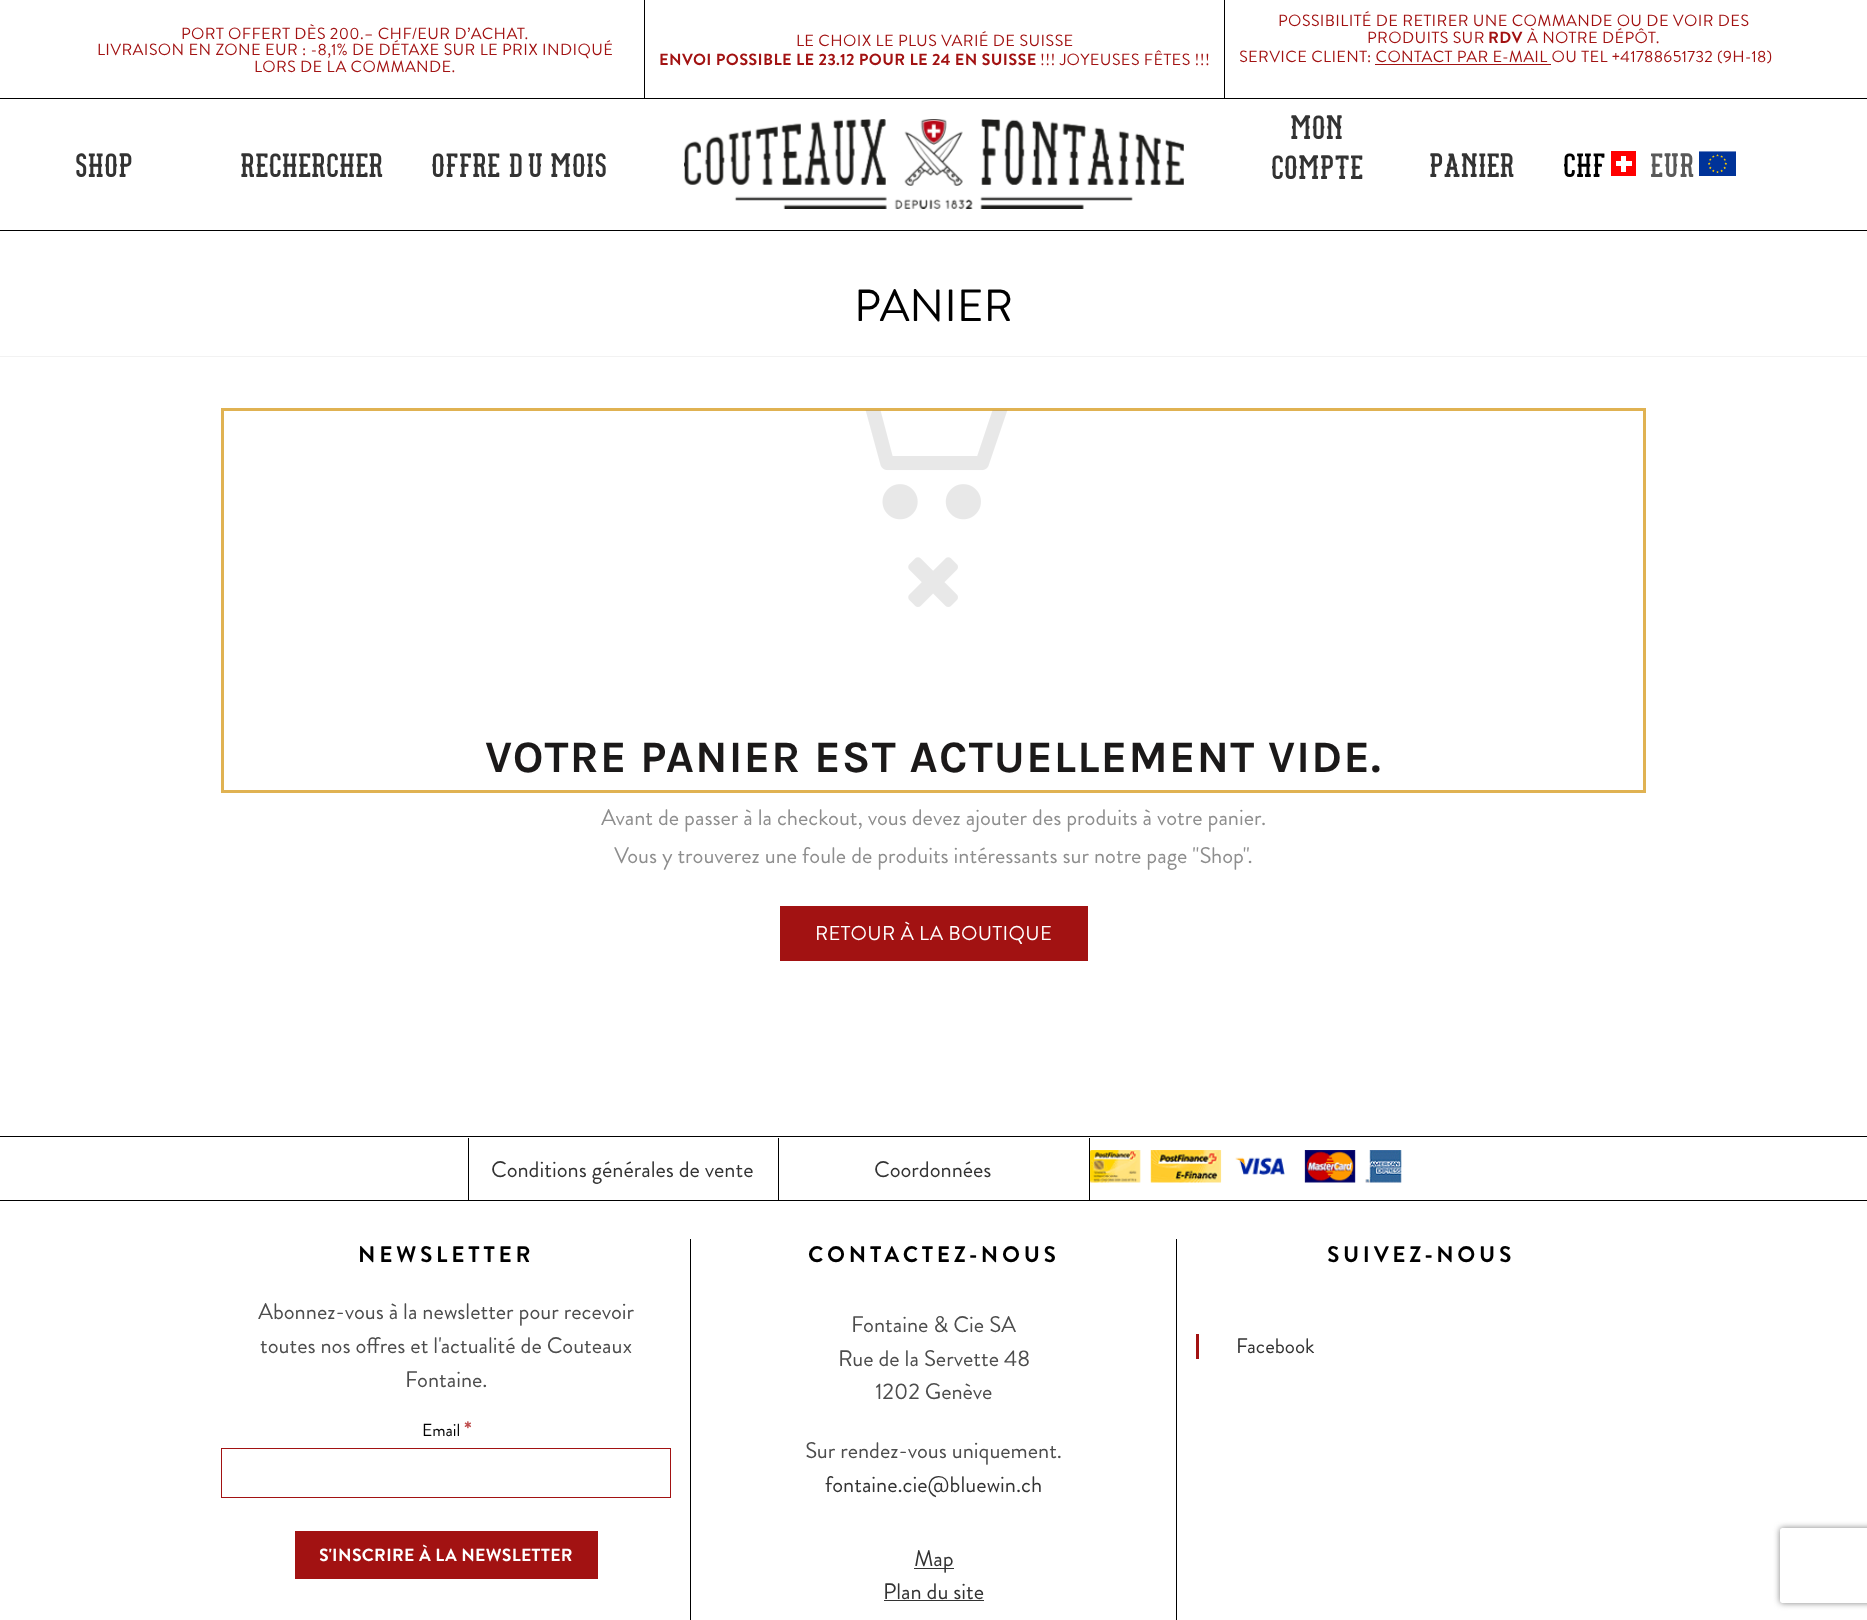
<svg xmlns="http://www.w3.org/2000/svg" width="1867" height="1620">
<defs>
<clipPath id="clip1"><path d="M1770 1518h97v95h-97zm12.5 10h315c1.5 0 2.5 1 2.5 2.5v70c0 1.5-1 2.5-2.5 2.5h-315c-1.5 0-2.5-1-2.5-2.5v-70c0-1.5 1-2.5 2.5-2.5z" clip-rule="evenodd"/></clipPath>
</defs>
<rect width="100%" height="100%" fill="#fff"/>
<rect y="98" width="1867" height="1" fill="#000"/>
<text x="181" y="39" style="font-family:Brandon Grotesque;font-size:16.25px;letter-spacing:0.38px;fill:#a21212">PORT OFFERT DÈS 200.– CHF/EUR D’ACHAT.</text>
<text x="97" y="55" style="font-family:Brandon Grotesque;font-size:16.25px;letter-spacing:0.38px;fill:#a21212">LIVRAISON EN ZONE EUR : -8,1% DE DÉTAXE SUR LE PRIX INDIQUÉ</text>
<text x="254" y="72" style="font-family:Brandon Grotesque;font-size:16.25px;letter-spacing:0.38px;fill:#a21212">LORS DE LA COMMANDE.</text>
<rect x="644" width="1" height="98" fill="#000"/>
<text x="796" y="46" style="font-family:Brandon Grotesque;font-size:16.25px;letter-spacing:0.38px;fill:#a21212">LE CHOIX LE PLUS VARIÉ DE SUISSE</text>
<text x="659" y="65" style="font-family:Brandon Grotesque;font-size:16.25px;font-weight:bold;letter-spacing:0.38px;fill:#a21212">ENVOI POSSIBLE LE 23.12 POUR LE 24 EN SUISSE</text>
<text x="1040" y="65" style="font-family:Brandon Grotesque;font-size:16.25px;letter-spacing:0.38px;fill:#a21212">!!! JOYEUSES FÊTES !!!</text>
<rect x="1224" width="1" height="98" fill="#000"/>
<text x="1278" y="26" style="font-family:Brandon Grotesque;font-size:16.25px;letter-spacing:0.38px;fill:#a21212">POSSIBILITÉ DE RETIRER UNE COMMANDE OU DE VOIR DES</text>
<text x="1367" y="43" style="font-family:Brandon Grotesque;font-size:16.25px;letter-spacing:0.38px;fill:#a21212">PRODUITS SUR</text>
<text x="1488" y="43" style="font-family:Brandon Grotesque;font-size:16.25px;font-weight:bold;letter-spacing:0.38px;fill:#a21212">RDV</text>
<text x="1527" y="43" style="font-family:Brandon Grotesque;font-size:16.25px;letter-spacing:0.38px;fill:#a21212">À NOTRE DÉPÔT.</text>
<text x="1239" y="62" style="font-family:Brandon Grotesque;font-size:16.25px;letter-spacing:0.38px;fill:#a21212">SERVICE CLIENT: CONTACT PAR E-MAIL OU TEL +41788651732 (9H-18)</text>
<rect x="1375" y="64" width="176" height="1" fill="#a21212"/>
<rect y="230" width="1867" height="1" fill="#000"/>
<text x="75" y="177" style="font-family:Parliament;font-size:33.75px;fill:#333">Shop</text>
<text x="240" y="177" style="font-family:Parliament;font-size:33.75px;fill:#333">Rechercher</text>
<text x="431" y="177" style="font-family:Parliament;font-size:33.75px;fill:#333">Offre du mois</text>
<image x="684" y="119" width="500" height="90" href="media/1.png"/>
<text x="1290" y="139" style="font-family:Parliament;font-size:33.75px;fill:#333">Mon</text>
<text x="1271" y="179" style="font-family:Parliament;font-size:33.75px;fill:#333">Compte</text>
<text x="1429" y="177" style="font-family:Parliament;font-size:33.75px;fill:#333">Panier</text>
<rect x="1611" y="151" width="25" height="25" fill="#f00"/>
<rect x="1616" y="161" width="16" height="5" fill="#fff"/>
<rect x="1621" y="156" width="5" height="16" fill="#fff"/>
<text x="1563" y="177" style="font-family:Parliament;font-size:33.75px;fill:#000">CHF</text>
<image x="1699" y="151" width="37" height="25" href="media/2.png"/>
<text x="1650" y="177" style="font-family:Parliament;font-size:33.75px;fill:#595959">EUR</text>
<rect y="356" width="1867" height="1" fill="#f2f2f2"/>
<text x="854" y="321" style="font-family:Brandon Grotesque;font-size:45px;fill:#000">PANIER</text>
<rect x="222.5" y="409.5" width="1422" height="382" fill="none" stroke="#e0b252" stroke-width="3"/>
<image x="865" y="410" width="143" height="110" href="media/3.png"/>
<image x="908" y="557" width="50" height="50" href="media/4.png"/>
<text x="485" y="772" style="font-family:Karla;font-size:45px;font-weight:bold;letter-spacing:1.25px;fill:#1b1919">VOTRE PANIER EST ACTUELLEMENT VIDE.</text>
<text x="601" y="825" style="font-family:Brandon Grotesque;font-size:22.5px;fill:#8e8e8e">Avant de passer à la checkout, vous devez ajouter des produits à votre panier.</text>
<text x="614" y="863" style="font-family:Brandon Grotesque;font-size:22.5px;fill:#8e8e8e">Vous y trouverez une foule de produits intéressants sur notre page "Shop".</text>
<rect x="780" y="906" width="308" height="55" fill="#a21212"/>
<text x="815" y="940" style="font-family:Brandon Grotesque;font-size:20px;letter-spacing:0.38px;fill:#fff">RETOUR À LA BOUTIQUE</text>
<rect y="1136" width="1867" height="1" fill="#000"/>
<rect y="1200" width="1867" height="1" fill="#000"/>
<rect x="778" y="1138" width="1" height="62" fill="#000"/>
<rect x="468" y="1138" width="1" height="62" fill="#000"/>
<text x="491" y="1177" style="font-family:Brandon Grotesque;font-size:22.5px;fill:#333">Conditions générales de vente</text>
<rect x="1089" y="1138" width="1" height="62" fill="#000"/>
<text x="874" y="1177" style="font-family:Brandon Grotesque;font-size:22.5px;fill:#333">Coordonnées</text>
<image x="1090" y="1150" width="312" height="33" href="media/5.png"/>
<text x="358" y="1262" style="font-family:Brandon Grotesque;font-size:22.5px;font-weight:bold;letter-spacing:3.75px;fill:#000">NEWSLETTER</text>
<text x="258" y="1319" style="font-family:Brandon Grotesque;font-size:22.5px;fill:#4d4d4d">Abonnez-vous à la newsletter pour recevoir</text>
<text x="260" y="1353" style="font-family:Brandon Grotesque;font-size:22.5px;fill:#4d4d4d">toutes nos offres et l'actualité de Couteaux</text>
<text x="405" y="1387" style="font-family:Brandon Grotesque;font-size:22.5px;fill:#4d4d4d">Fontaine.</text>
<text x="422" y="1436" style="font-family:Brandon Grotesque;font-size:17.5px;fill:#000">Email</text>
<text x="464" y="1436" style="font-family:Brandon Grotesque;font-size:21px;font-weight:bold;fill:#bf4d4d">*</text>
<rect x="221.5" y="1448.5" width="449" height="49" fill="none" stroke="#a21212"/>
<rect x="295" y="1531" width="303" height="48" fill="#a21212"/>
<text x="319" y="1561" style="font-family:Brandon Grotesque;font-size:17.5px;font-weight:bold;letter-spacing:0.38px;fill:#fff">S'INSCRIRE À LA NEWSLETTER</text>
<rect x="1176" y="1239" width="1" height="381" fill="#000"/>
<rect x="690" y="1239" width="1" height="381" fill="#000"/>
<text x="808" y="1262" style="font-family:Brandon Grotesque;font-size:22.5px;font-weight:bold;letter-spacing:3.75px;fill:#000">CONTACTEZ-NOUS</text>
<text x="851" y="1332" style="font-family:Brandon Grotesque;font-size:22.5px;fill:#4d4d4d">Fontaine &amp; Cie SA</text>
<text x="838" y="1366" style="font-family:Brandon Grotesque;font-size:22.5px;fill:#4d4d4d">Rue de la Servette 48</text>
<text x="875" y="1399" style="font-family:Brandon Grotesque;font-size:22.5px;fill:#4d4d4d">1202 Genève</text>
<text x="805" y="1458" style="font-family:Brandon Grotesque;font-size:22.5px;fill:#4d4d4d">Sur rendez-vous uniquement.</text>
<text x="825" y="1492" style="font-family:Brandon Grotesque;font-size:22.5px;fill:#333">fontaine.cie@bluewin.ch</text>
<rect x="914" y="1568" width="40" height="1" fill="#333"/>
<text x="914" y="1566" style="font-family:Brandon Grotesque;font-size:22.5px;fill:#333">Map</text>
<text x="883" y="1599" style="font-family:Brandon Grotesque;font-size:22.5px;fill:#333">Plan du site</text>
<rect x="884" y="1600" width="100" height="1" fill="#333"/>
<text x="1327" y="1262" style="font-family:Brandon Grotesque;font-size:22.5px;font-weight:bold;letter-spacing:3.75px;fill:#000">SUIVEZ-NOUS</text>
<rect x="1196" y="1334" width="3" height="25" fill="#a21212"/>
<text x="1236" y="1353" style="font-family:Brandon Grotesque;font-size:21px;fill:#333">Facebook</text>
<g clip-path="url(#clip1)">
<rect x="1780" y="1528" width="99" height="75" rx="2.5" fill="#808080" filter="blur(3px)"/>
</g>
</svg>
